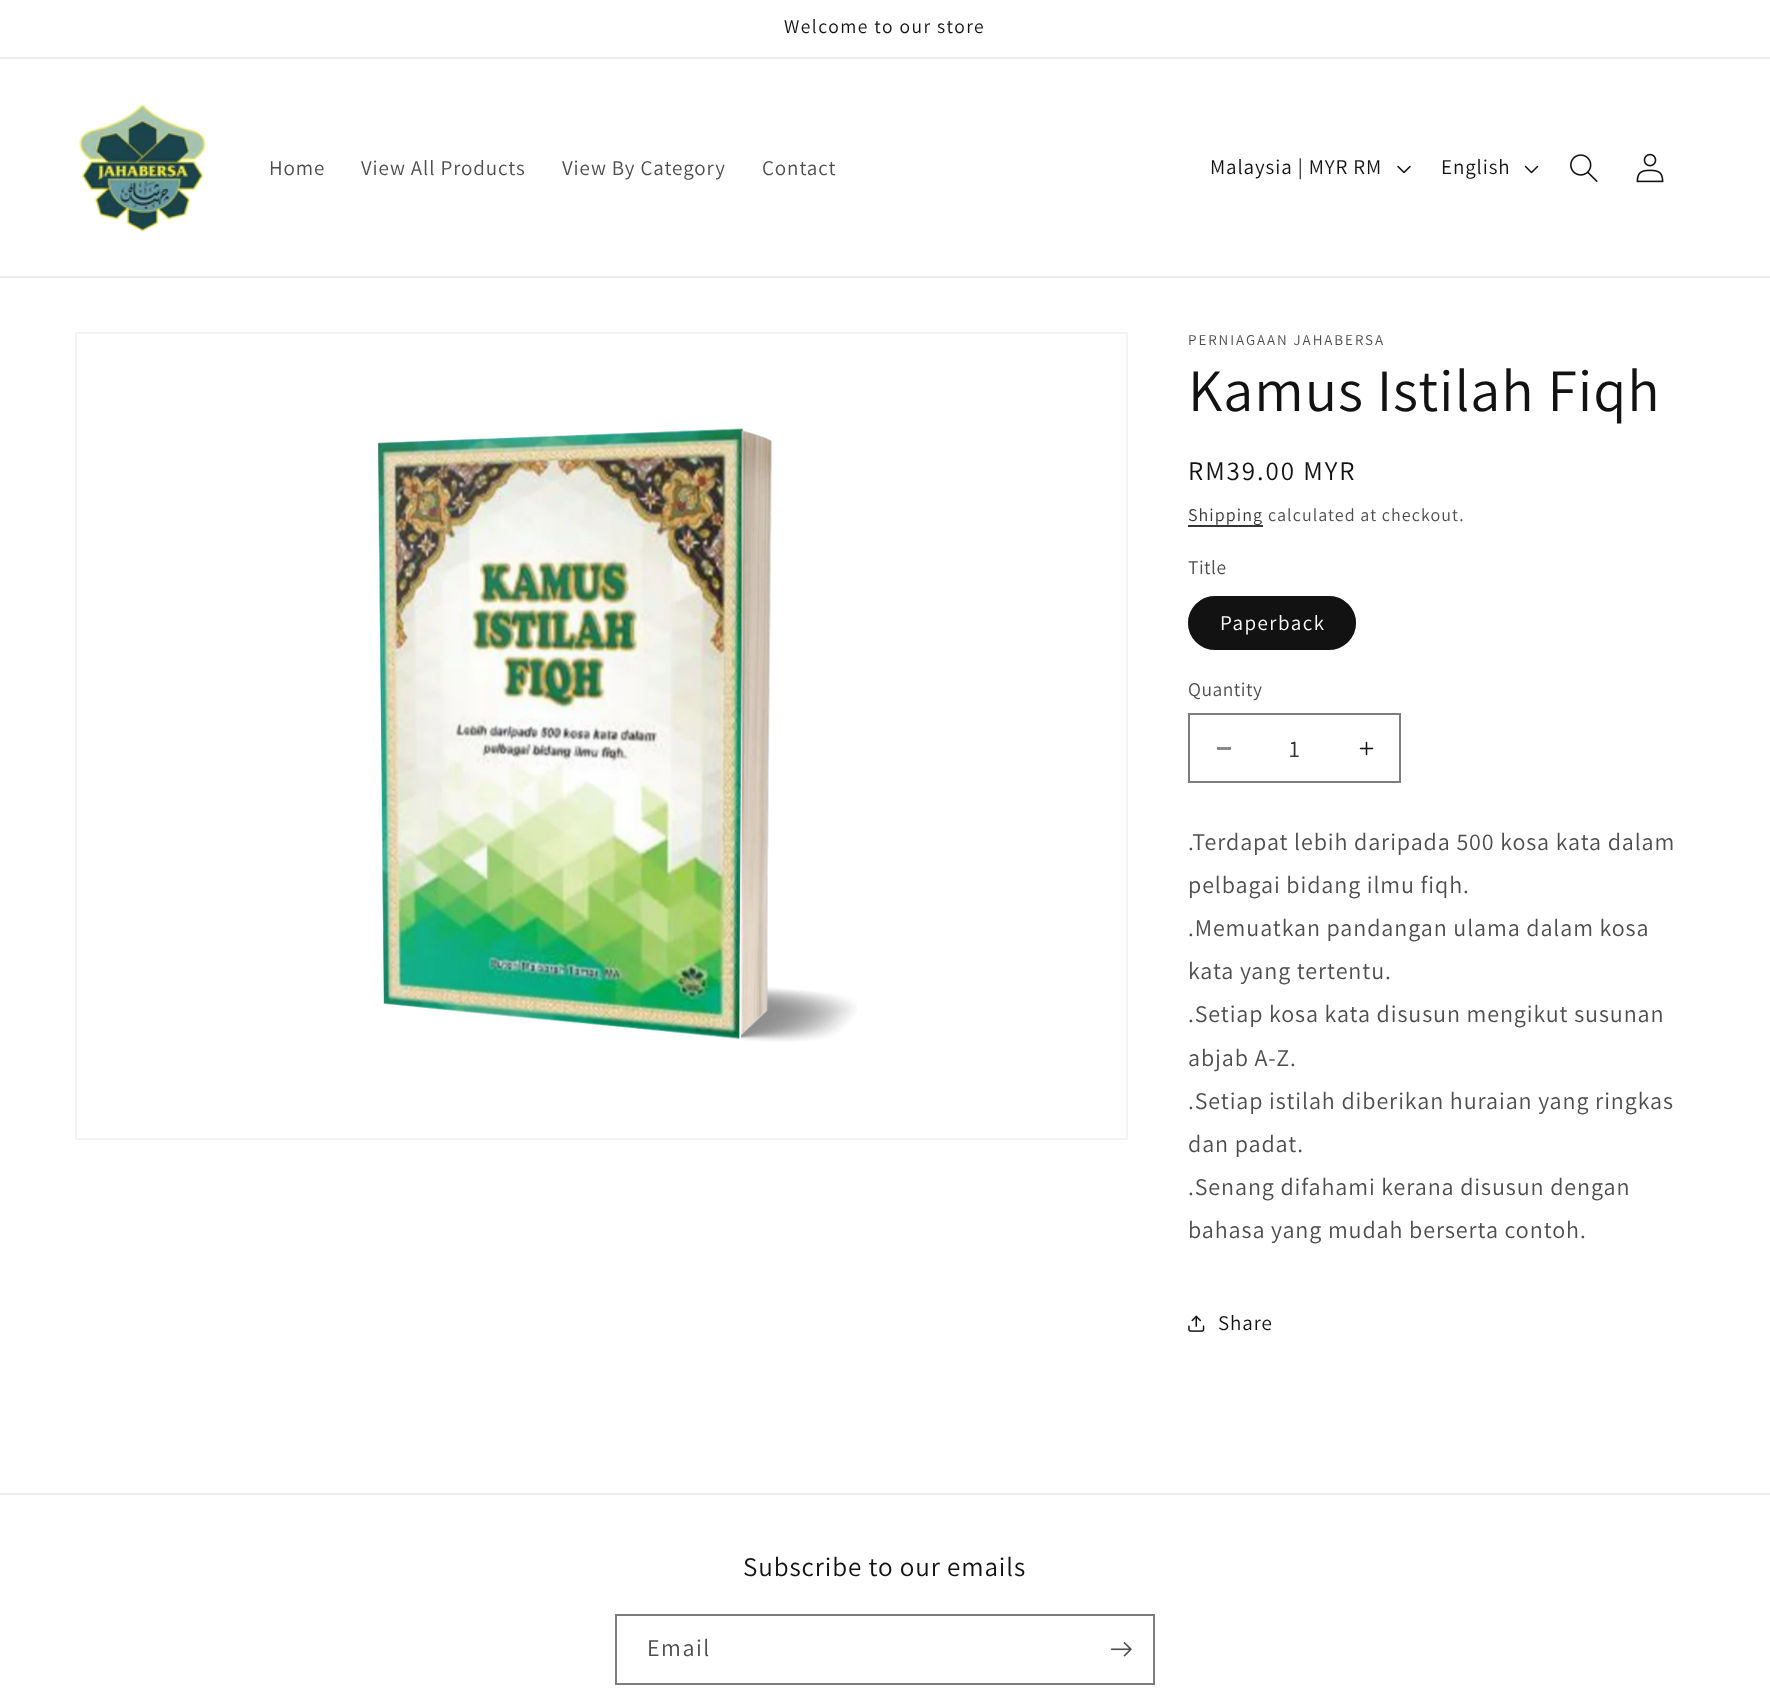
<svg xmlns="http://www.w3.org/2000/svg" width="1770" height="1704">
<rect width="100%" height="100%" fill="#fff"/>
<rect y="57" width="1770" height="2" fill="#ececec"/>
<text x="784" y="33" style="font-family:Assistant;font-size:19.5px;letter-spacing:1.5px;fill:#121212">Welcome to our store</text>
<rect y="276" width="1770" height="2" fill="#ececec"/>
<image x="79" y="104" width="127" height="129" href="media/1.png"/>
<text x="269" y="175" style="font-family:Assistant;font-size:21px;letter-spacing:0.9px;fill:#4d4d4d">Home</text>
<text x="361" y="175" style="font-family:Assistant;font-size:21px;letter-spacing:0.9px;fill:#4d4d4d">View All Products</text>
<text x="562" y="175" style="font-family:Assistant;font-size:21px;letter-spacing:0.9px;fill:#4d4d4d">View By Category</text>
<text x="762" y="175" style="font-family:Assistant;font-size:21px;letter-spacing:0.9px;fill:#4d4d4d">Contact</text>
<text x="1210" y="174" style="font-family:Assistant;font-size:21px;letter-spacing:0.9px;fill:#121212">Malaysia | MYR RM</text>
<image x="1397" y="165" width="14" height="9" href="media/2.png"/>
<text x="1441" y="174" style="font-family:Assistant;font-size:21px;letter-spacing:0.9px;fill:#121212">English</text>
<image x="1524" y="165" width="15" height="9" href="media/3.png"/>
<image x="1570" y="154" width="28" height="28" href="media/4.png"/>
<image x="1636" y="153" width="28" height="30" href="media/5.png"/>
<rect x="76" y="333" width="1051" height="806" fill="none" stroke="#f3f3f3" stroke-width="2"/>
<image x="378" y="428" width="479" height="614" href="media/6.png"/>
<text x="1188" y="345" style="font-family:Assistant;font-size:15px;letter-spacing:1.95px;fill:#4d4d4d">PERNIAGAAN JAHABERSA</text>
<text x="1188" y="411" style="font-family:Assistant;font-size:60px;letter-spacing:0.9px;fill:#121212">Kamus Istilah Fiqh</text>
<text x="1188" y="480" style="font-family:Assistant;font-size:27px;letter-spacing:1.95px;fill:#121212">RM39.00 MYR</text>
<rect x="1188" y="525" width="75" height="2" fill="#363636"/>
<text x="1188" y="521" style="font-family:Assistant;font-size:18px;letter-spacing:1.05px;fill:#353535">Shipping</text>
<text x="1268" y="521" style="font-family:Assistant;font-size:18px;letter-spacing:1.05px;fill:#4d4d4d">calculated at checkout.</text>
<text x="1188" y="574" style="font-family:Assistant;font-size:19.5px;letter-spacing:0.5px;fill:#4d4d4d">Title</text>
<rect x="1188" y="596" width="168" height="54" rx="27" fill="#121212"/>
<rect x="1189" y="597" width="166" height="52" rx="26" fill="none" stroke="#1212128c" stroke-width="2"/>
<text x="1220" y="630" style="font-family:Assistant;font-size:21px;letter-spacing:1.5px;fill:#fff">Paperback</text>
<text x="1188" y="696" style="font-family:Assistant;font-size:19.5px;letter-spacing:0.5px;fill:#4d4d4d">Quantity</text>
<rect x="1217" y="747" width="14" height="3" fill="#898989"/>
<image x="1359" y="741" width="15" height="15" href="media/7.png"/>
<rect x="1189" y="714" width="211" height="68" fill="none" stroke="#7d7d7d" stroke-width="2"/>
<text x="1289" y="757" style="font-family:Assistant;font-size:24px;fill:#353535">1</text>
<text x="1188" y="850" style="font-family:Assistant;font-size:24px;letter-spacing:0.9px;fill:#4d4d4d">.Terdapat lebih daripada 500 kosa kata dalam</text>
<text x="1188" y="893" style="font-family:Assistant;font-size:24px;letter-spacing:0.9px;fill:#4d4d4d">pelbagai bidang ilmu fiqh.</text>
<text x="1188" y="936" style="font-family:Assistant;font-size:24px;letter-spacing:0.9px;fill:#4d4d4d">.Memuatkan pandangan ulama dalam kosa</text>
<text x="1188" y="979" style="font-family:Assistant;font-size:24px;letter-spacing:0.9px;fill:#4d4d4d">kata yang tertentu.</text>
<text x="1188" y="1022" style="font-family:Assistant;font-size:24px;letter-spacing:0.9px;fill:#4d4d4d">.Setiap kosa kata disusun mengikut susunan</text>
<text x="1188" y="1066" style="font-family:Assistant;font-size:24px;letter-spacing:0.9px;fill:#4d4d4d">abjab A-Z.</text>
<text x="1188" y="1109" style="font-family:Assistant;font-size:24px;letter-spacing:0.9px;fill:#4d4d4d">.Setiap istilah diberikan huraian yang ringkas</text>
<text x="1188" y="1152" style="font-family:Assistant;font-size:24px;letter-spacing:0.9px;fill:#4d4d4d">dan padat.</text>
<text x="1188" y="1195" style="font-family:Assistant;font-size:24px;letter-spacing:0.9px;fill:#4d4d4d">.Senang difahami kerana disusun dengan</text>
<text x="1188" y="1238" style="font-family:Assistant;font-size:24px;letter-spacing:0.9px;fill:#4d4d4d">bahasa yang mudah berserta contoh.</text>
<image x="1188" y="1315" width="17" height="17" href="media/8.png"/>
<text x="1218" y="1330" style="font-family:Assistant;font-size:21px;letter-spacing:0.9px;fill:#121212">Share</text>
<rect y="1493" width="1770" height="2" fill="#ececec"/>
<text x="743" y="1576" style="font-family:Assistant;font-size:27px;letter-spacing:0.9px;fill:#121212">Subscribe to our emails</text>
<rect x="616" y="1615" width="538" height="69" fill="none" stroke="#7d7d7d" stroke-width="2"/>
<text x="647" y="1656" style="font-family:Assistant;font-size:24px;letter-spacing:1.5px;fill:#4d4d4d">Email</text>
<image x="1110" y="1642" width="22" height="15" href="media/9.png"/>
</svg>
